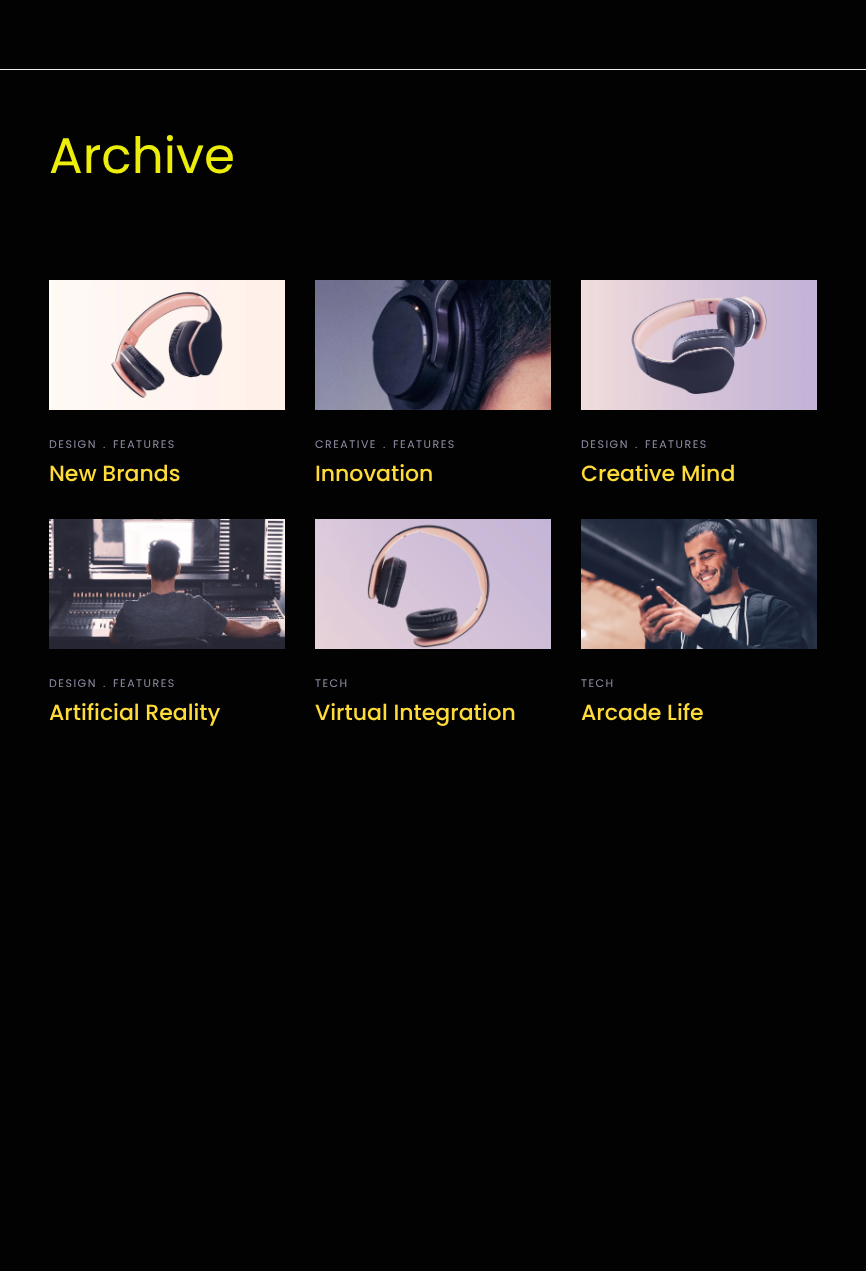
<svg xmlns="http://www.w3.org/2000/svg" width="866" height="1271">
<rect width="100%" height="100%" fill="#020202"/>
<rect y="69" width="866" height="1" fill="#edeff2"/>
<text x="49" y="173" style="font-family:Poppins;font-size:50px;fill:#eded0b">Archive</text>
<image x="49" y="280" width="236" height="130" href="media/1.png"/>
<text x="49" y="448" style="font-family:Poppins;font-size:11px;letter-spacing:1.5px;fill:#938da6">DESIGN</text>
<text x="103" y="448" style="font-family:Poppins;font-size:11px;letter-spacing:1.5px;fill:#938da6">.</text>
<text x="113" y="448" style="font-family:Poppins;font-size:11px;letter-spacing:1.5px;fill:#938da6">FEATURES</text>
<text x="49" y="481" style="font-family:Poppins;font-size:22px;font-weight:500;fill:#ffdb3a">New Brands</text>
<image x="315" y="280" width="236" height="130" href="media/2.png"/>
<text x="315" y="448" style="font-family:Poppins;font-size:11px;letter-spacing:1.5px;fill:#938da6">CREATIVE</text>
<text x="383" y="448" style="font-family:Poppins;font-size:11px;letter-spacing:1.5px;fill:#938da6">.</text>
<text x="393" y="448" style="font-family:Poppins;font-size:11px;letter-spacing:1.5px;fill:#938da6">FEATURES</text>
<text x="315" y="481" style="font-family:Poppins;font-size:22px;font-weight:500;fill:#ffdb3a">Innovation</text>
<image x="581" y="280" width="236" height="130" href="media/3.png"/>
<text x="581" y="448" style="font-family:Poppins;font-size:11px;letter-spacing:1.5px;fill:#938da6">DESIGN</text>
<text x="635" y="448" style="font-family:Poppins;font-size:11px;letter-spacing:1.5px;fill:#938da6">.</text>
<text x="645" y="448" style="font-family:Poppins;font-size:11px;letter-spacing:1.5px;fill:#938da6">FEATURES</text>
<text x="581" y="481" style="font-family:Poppins;font-size:22px;font-weight:500;fill:#ffdb3a">Creative Mind</text>
<image x="49" y="519" width="236" height="130" href="media/4.png"/>
<text x="49" y="687" style="font-family:Poppins;font-size:11px;letter-spacing:1.5px;fill:#938da6">DESIGN</text>
<text x="103" y="687" style="font-family:Poppins;font-size:11px;letter-spacing:1.5px;fill:#938da6">.</text>
<text x="113" y="687" style="font-family:Poppins;font-size:11px;letter-spacing:1.5px;fill:#938da6">FEATURES</text>
<text x="49" y="720" style="font-family:Poppins;font-size:22px;font-weight:500;fill:#ffdb3a">Artificial Reality</text>
<image x="315" y="519" width="236" height="130" href="media/5.png"/>
<text x="315" y="687" style="font-family:Poppins;font-size:11px;letter-spacing:1.5px;fill:#938da6">TECH</text>
<text x="315" y="720" style="font-family:Poppins;font-size:22px;font-weight:500;fill:#ffdb3a">Virtual Integration</text>
<image x="581" y="519" width="236" height="130" href="media/6.png"/>
<text x="581" y="687" style="font-family:Poppins;font-size:11px;letter-spacing:1.5px;fill:#938da6">TECH</text>
<text x="581" y="720" style="font-family:Poppins;font-size:22px;font-weight:500;fill:#ffdb3a">Arcade Life</text>
</svg>
